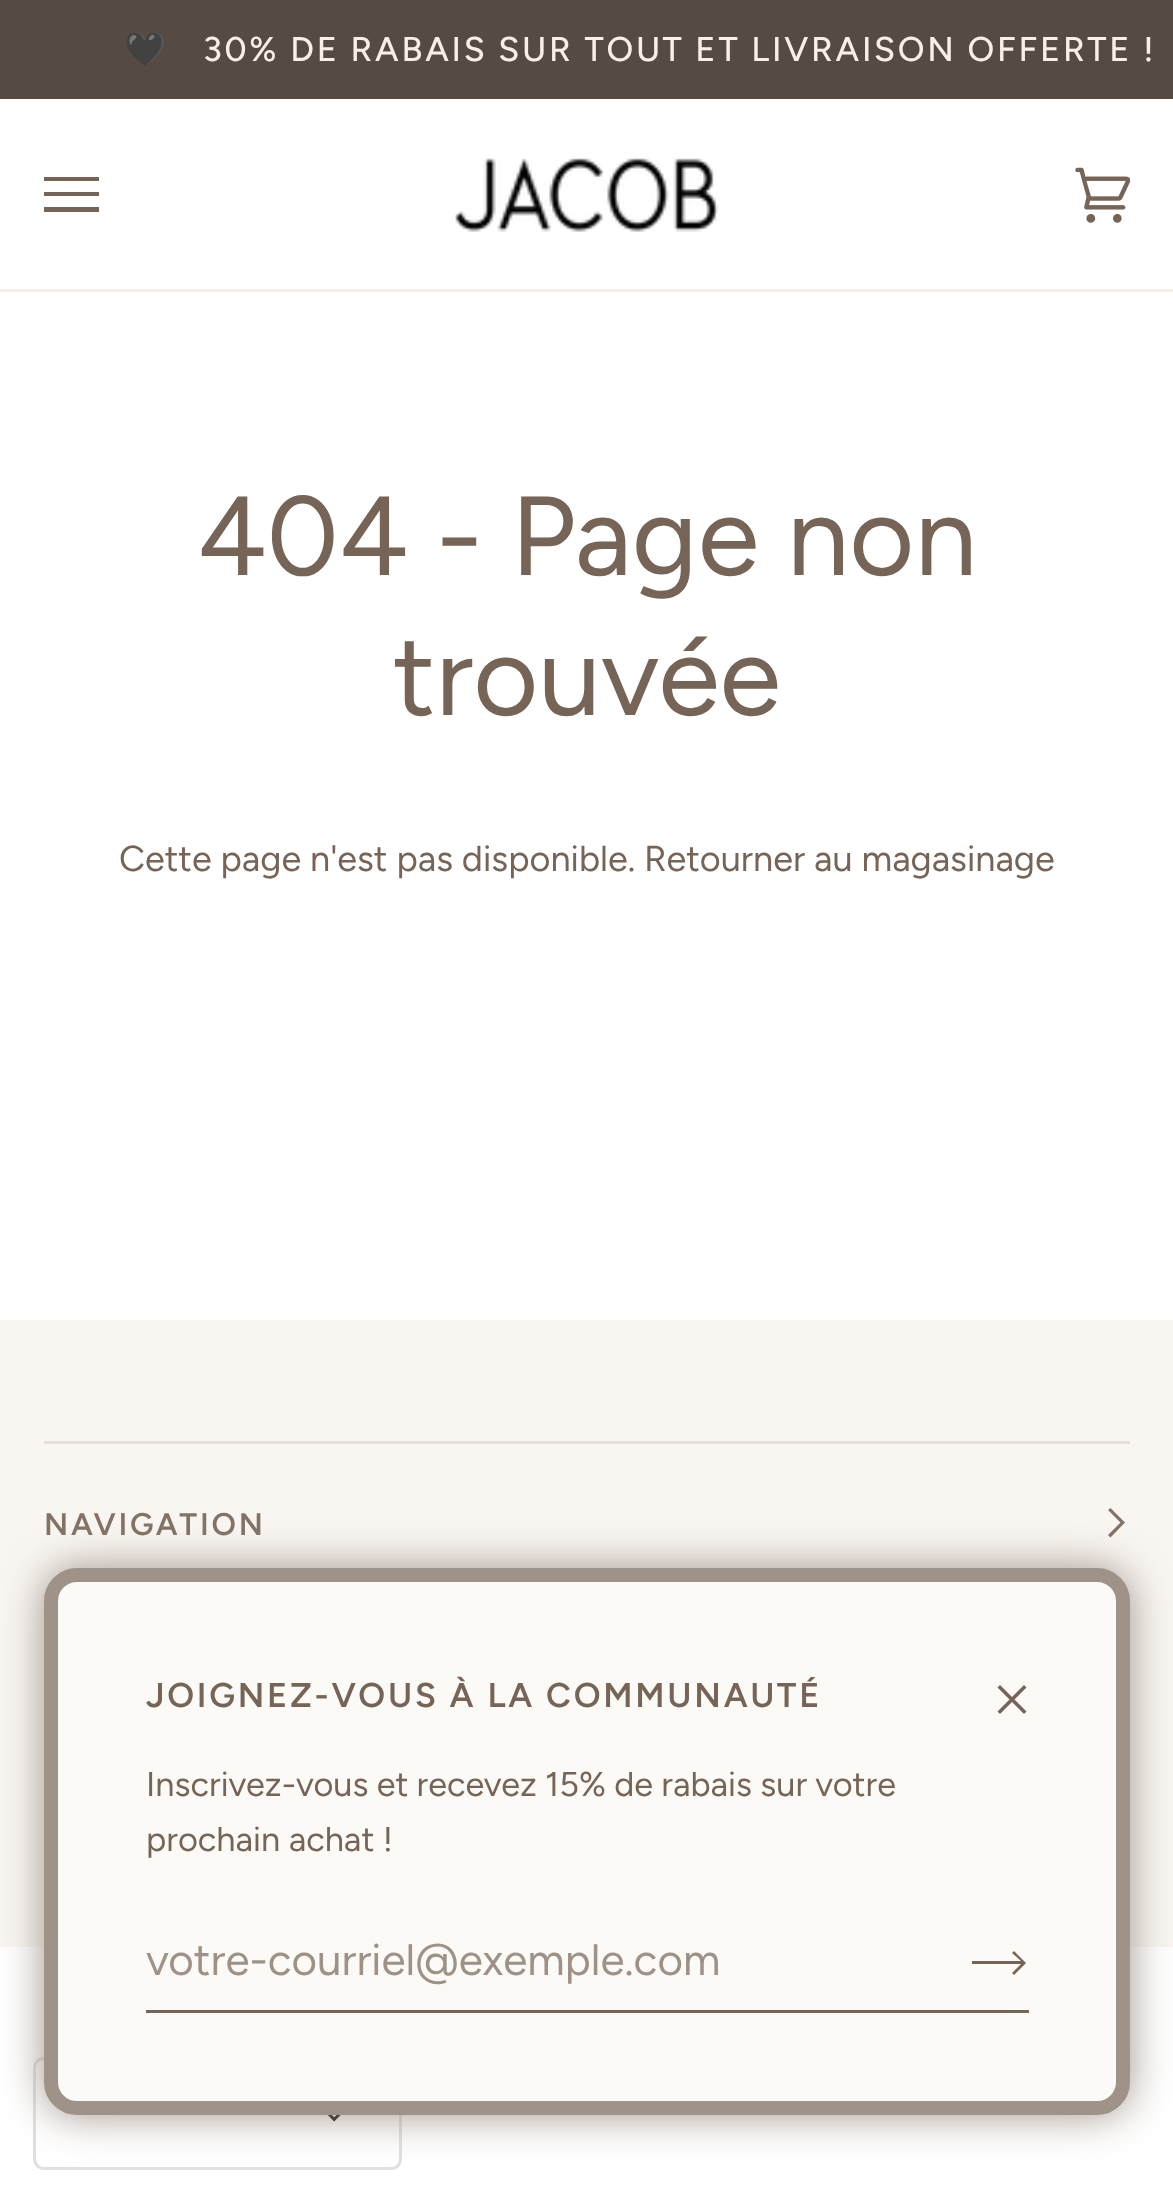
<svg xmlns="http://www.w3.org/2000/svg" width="1173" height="2202">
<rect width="100%" height="100%" fill="#fff"/>
<rect width="1173" height="99" fill="#564b42"/>
<text x="124" y="61" style="font-family:Noto Color Emoji;font-size:34.35px;letter-spacing:2.75px;fill:#f8f0e7">🖤</text>
<text x="203" y="61" word-spacing="-0.25" style="font-family:Figtree;font-size:34.35px;font-weight:500;letter-spacing:2.75px;fill:#f8f0e7">30% DE RABAIS SUR TOUT ET LIVRAISON OFFERTE !</text>
<rect y="289" width="1173" height="3" fill="#f8f0e7"/>
<path d="M44 177h55v4h-55zm0 15h55v4h-55zm0 15h55v5h-55z" fill="#766456"/>
<image x="455" y="158" width="264" height="74" href="media/1.png"/>
<image x="1075" y="167" width="55" height="56" href="media/2.png"/>
<text x="197" y="575" style="font-family:Figtree;font-size:112.25px;fill:#766456">404 - Page non</text>
<text x="393" y="715" style="font-family:Figtree;font-size:112.25px;fill:#766456">trouvée</text>
<text x="119" y="871" style="font-family:Figtree;font-size:36.1px;fill:#766456">Cette page n'est pas disponible.</text>
<text x="644" y="871" style="font-family:Figtree;font-size:36.1px;fill:#766456">Retourner au magasinage</text>
<rect y="1320" width="1173" height="627" fill="#f9f6f2"/>
<rect x="44" y="1441" width="1086" height="3" fill="#e5e0db"/>
<text x="44" y="1535" style="font-family:Figtree;font-size:31.25px;font-weight:600;letter-spacing:2.75px;fill:#837366">NAVIGATION</text>
<path d="M1120.5 1522.5l-12.5-12.5l2.5-2l14.5 14.5l-14.5 15l-2.5-2.5z" fill="#837366" fill-rule="evenodd"/>
<rect x="34.5" y="2058.5" width="366" height="110" rx="9.5" fill="none" stroke="#e0e0e0" stroke-width="3"/>
<image x="327" y="2115" width="14" height="7" href="media/3.png"/>
<rect x="44" y="1568" width="1086" height="547" rx="33" fill="#9f9389" filter="blur(20.5px)"/>
<rect x="51" y="1575" width="1072" height="533" rx="26" fill="#fcfaf7" stroke="#9f9389" stroke-width="14"/>
<text x="146" y="1707" style="font-family:Figtree;font-size:34.35px;font-weight:600;letter-spacing:2.75px;fill:#766456">JOIGNEZ-VOUS À LA COMMUNAUTÉ</text>
<path d="M1000 1685l26.5 26.5l-2.5 2.5l-26.5-26.5z" fill="#766456" fill-rule="evenodd"/>
<path d="M997.5 1711.5l26.5-26.5l2.5 2.5l-26.5 26.5z" fill="#766456" fill-rule="evenodd"/>
<text x="146" y="1796" word-spacing="-0.25" style="font-family:Figtree;font-size:34.35px;fill:#766456">Inscrivez-vous et recevez 15% de rabais sur votre</text>
<text x="146" y="1851" style="font-family:Figtree;font-size:34.35px;fill:#766456">prochain achat !</text>
<rect x="146" y="2010" width="883" height="3" fill="#766456"/>
<text x="146" y="1975" style="font-family:Figtree;font-size:44px;fill:#9e9186">votre-courriel@exemple.com</text>
<path d="M1012 1953l2-2l12 12l-12 12l-2-2l9-9h-49v-3h49z" fill="#766456"/>
</svg>
